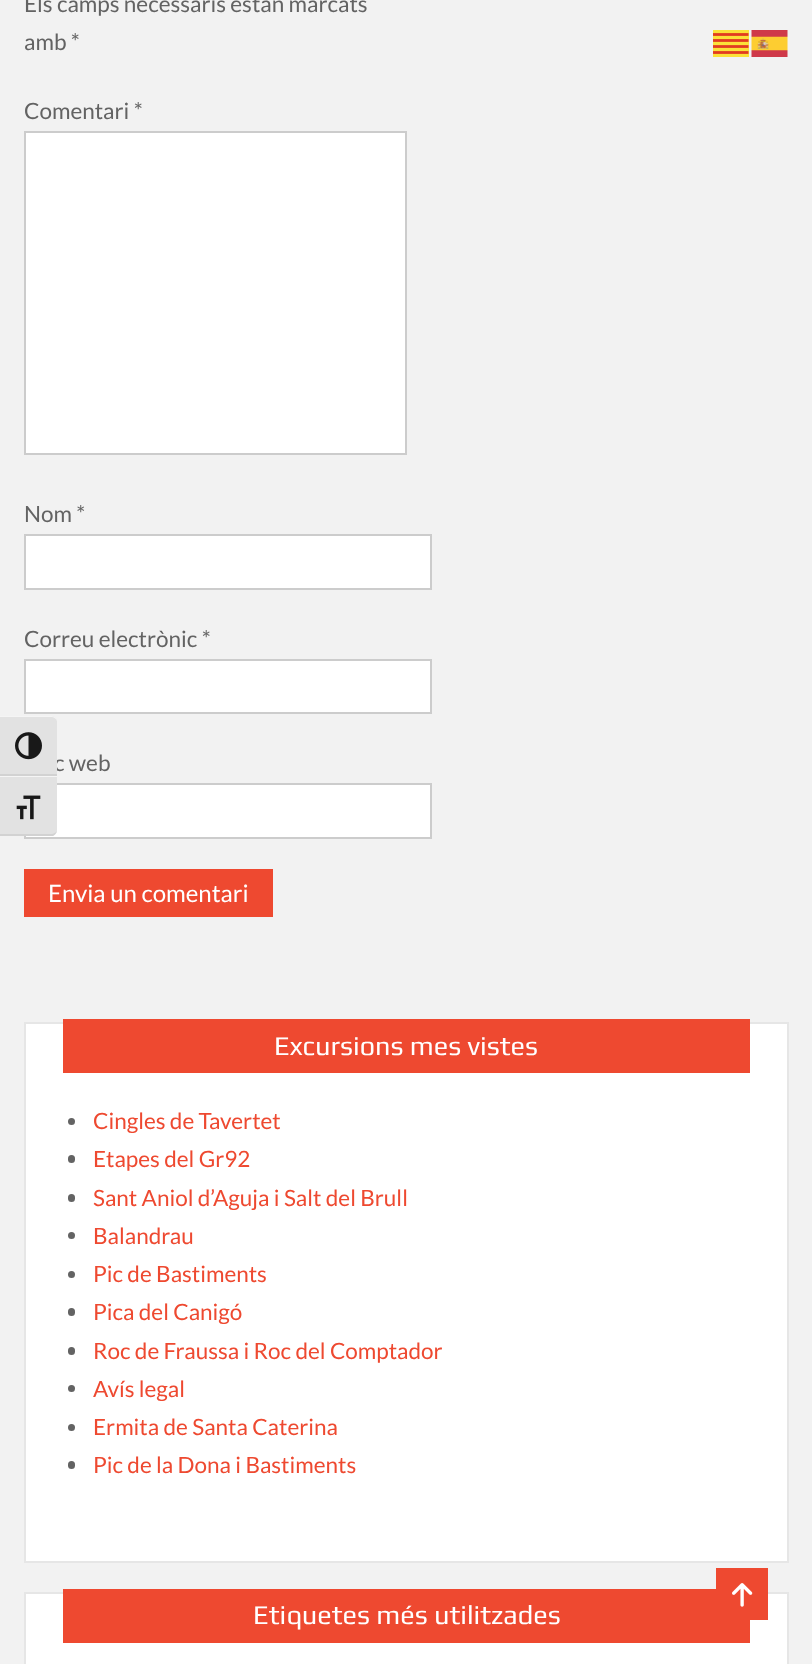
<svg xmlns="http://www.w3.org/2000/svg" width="812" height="1664">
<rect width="100%" height="100%" fill="#f2f2f2"/>
<text x="24" y="12" style="font-family:Lato;font-size:22.5px;fill:#636363">Els camps necessaris estan marcats</text>
<text x="24" y="50" style="font-family:Lato;font-size:22.5px;fill:#636363">amb *</text>
<text x="24" y="119" style="font-family:Lato;font-size:22.5px;fill:#636363">Comentari *</text>
<rect x="25" y="132" width="381" height="322" fill="#fff" stroke="#ccc" stroke-width="2"/>
<text x="24" y="522" style="font-family:Lato;font-size:22.5px;fill:#636363">Nom *</text>
<rect x="25" y="535" width="406" height="54" fill="#fff" stroke="#ccc" stroke-width="2"/>
<text x="24" y="647" style="font-family:Lato;font-size:22.5px;fill:#636363">Correu electrònic *</text>
<rect x="25" y="660" width="406" height="53" fill="#fff" stroke="#ccc" stroke-width="2"/>
<text x="54" y="771" style="font-family:Lato;font-size:22.5px;fill:#636363">c web</text>
<rect x="25" y="784" width="406" height="54" fill="#fff" stroke="#ccc" stroke-width="2"/>
<rect x="24" y="869" width="249" height="48" fill="#ee4930"/>
<text x="48" y="902" style="font-family:Lato;font-size:24px;fill:#fff">Envia un comentari</text>
<rect x="25" y="1023" width="763" height="539" fill="#fff" stroke="#e6e6e6" stroke-width="2"/>
<rect x="63" y="1019" width="687" height="54" fill="#ee4930"/>
<text x="274" y="1055" style="font-family:Play;font-size:27px;fill:#fff">Excursions mes vistes</text>
<circle cx="71.5" cy="1121.5" r="3.5" fill="#636363"/>
<text x="93" y="1129" style="font-family:Lato;font-size:22.5px;fill:#ee4930">Cingles de Tavertet</text>
<rect x="68" y="1155" width="7" height="8" rx="3.5" fill="#636363"/>
<text x="93" y="1167" style="font-family:Lato;font-size:22.5px;fill:#ee4930">Etapes del Gr92</text>
<rect x="68" y="1194" width="7" height="8" rx="3.5" fill="#636363"/>
<text x="93" y="1206" style="font-family:Lato;font-size:22.5px;fill:#ee4930">Sant Aniol d’Aguja i Salt del Brull</text>
<circle cx="71.5" cy="1235.5" r="3.5" fill="#636363"/>
<text x="93" y="1244" style="font-family:Lato;font-size:22.5px;fill:#ee4930">Balandrau</text>
<circle cx="71.5" cy="1274.5" r="3.5" fill="#636363"/>
<text x="93" y="1282" style="font-family:Lato;font-size:22.5px;fill:#ee4930">Pic de Bastiments</text>
<rect x="68" y="1308" width="7" height="8" rx="3.5" fill="#636363"/>
<text x="93" y="1320" style="font-family:Lato;font-size:22.5px;fill:#ee4930">Pica del Canigó</text>
<rect x="68" y="1347" width="7" height="8" rx="3.5" fill="#636363"/>
<text x="93" y="1359" style="font-family:Lato;font-size:22.5px;fill:#ee4930">Roc de Fraussa i Roc del Comptador</text>
<circle cx="71.5" cy="1388.5" r="3.5" fill="#636363"/>
<text x="93" y="1397" style="font-family:Lato;font-size:22.5px;fill:#ee4930">Avís legal</text>
<circle cx="71.5" cy="1427.5" r="3.5" fill="#636363"/>
<text x="93" y="1435" style="font-family:Lato;font-size:22.5px;fill:#ee4930">Ermita de Santa Caterina</text>
<rect x="68" y="1461" width="7" height="8" rx="3.5" fill="#636363"/>
<text x="93" y="1473" style="font-family:Lato;font-size:22.5px;fill:#ee4930">Pic de la Dona i Bastiments</text>
<rect x="25" y="1593" width="763" height="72" fill="#fff" stroke="#e6e6e6" stroke-width="2"/>
<rect x="63" y="1589" width="687" height="54" fill="#ee4930"/>
<text x="253" y="1624" style="font-family:Play;font-size:27px;fill:#fff">Etiquetes més utilitzades</text>
<rect x="716" y="1568" width="52" height="52" fill="#ee4930"/>
<image x="732" y="1583" width="21" height="24" href="media/1.png"/>
<image x="713" y="30" width="36" height="27" href="media/2.png"/>
<image x="751" y="30" width="37" height="27" href="media/3.png"/>
<path d="M0 716h51c3.5 0 6 2.5 6 6v54h-57z" fill="#e2e2e2"/>
<path d="M0 717h51c3 0 6 2 6 5c0-4-3-6-6-6h-51z" fill="#f5f5f5"/>
<rect y="774" width="57" height="2" fill="#d2d2d2"/>
<image x="15" y="732" width="27" height="28" href="media/4.png"/>
<path d="M0 776h57v54c0 3.5-2.5 6-6 6h-51z" fill="#e2e2e2"/>
<rect y="776" width="57" height="1" fill="#f5f5f5"/>
<path d="M53 836c2-1 4-4 4-6c0 2-3 4-6 4h-51v2z" fill="#d2d2d2"/>
<image x="16" y="795" width="25" height="25" href="media/5.png"/>
</svg>
